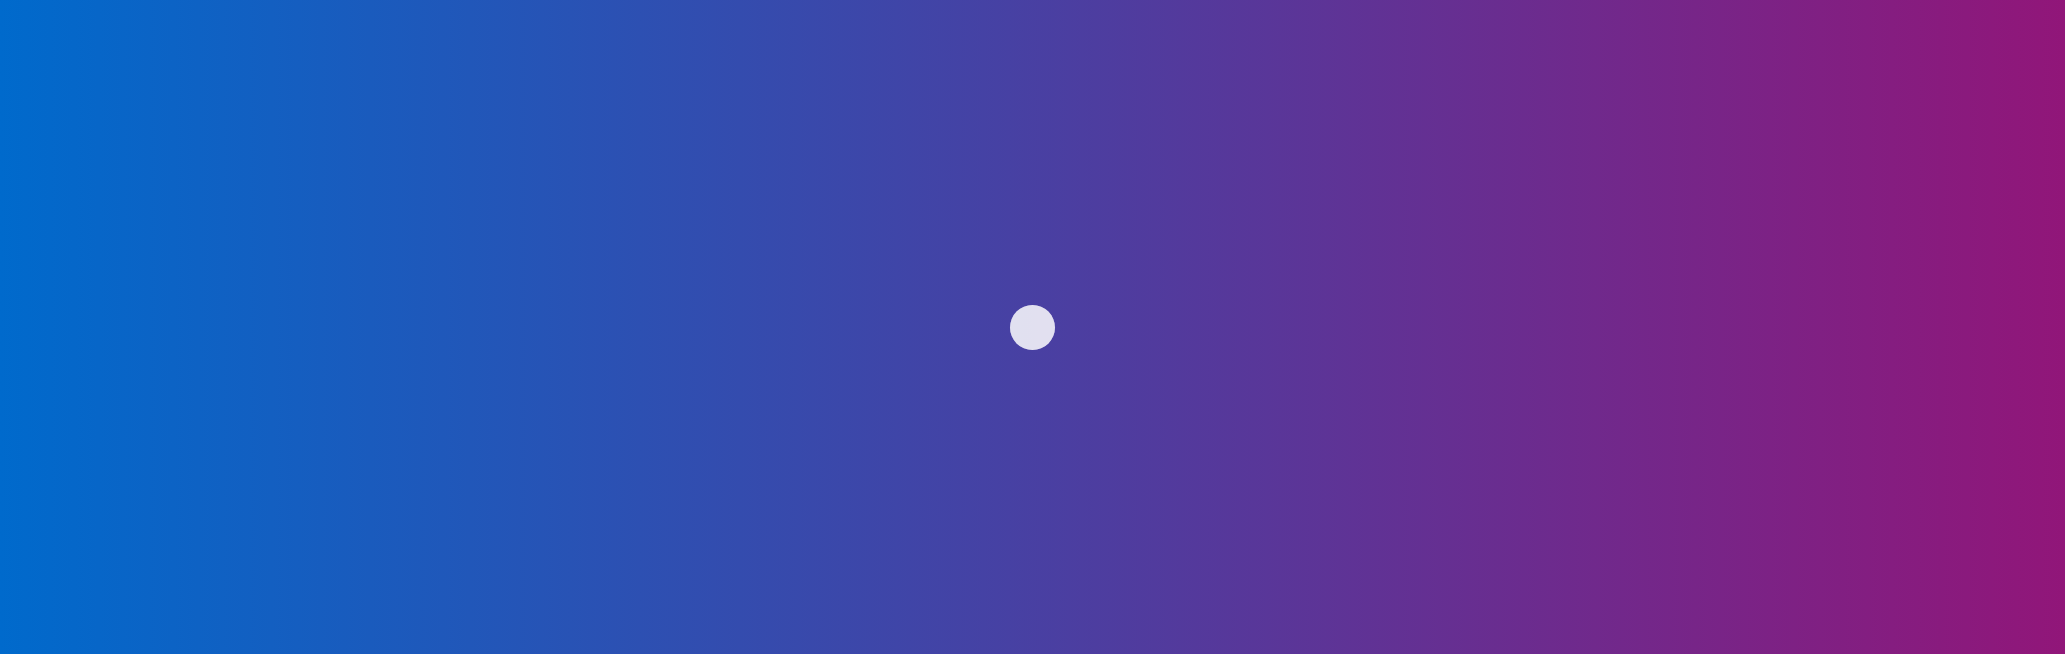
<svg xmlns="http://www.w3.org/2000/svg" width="2065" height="654">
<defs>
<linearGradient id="g1" gradientUnits="userSpaceOnUse" x1="0" y1="327" x2="2065" y2="327"><stop offset="0" stop-color="#006acc"/><stop offset="1" stop-color="#911679"/></linearGradient>
</defs>
<rect width="100%" height="100%" fill="#fff"/>
<rect width="2065" height="654" fill="url(#g1)"/>
<circle cx="1032.5" cy="327.5" r="22.5" fill="#ffffff99"/>
<circle cx="1032.5" cy="327.5" r="22.5" fill="#ffffff99"/>
</svg>
